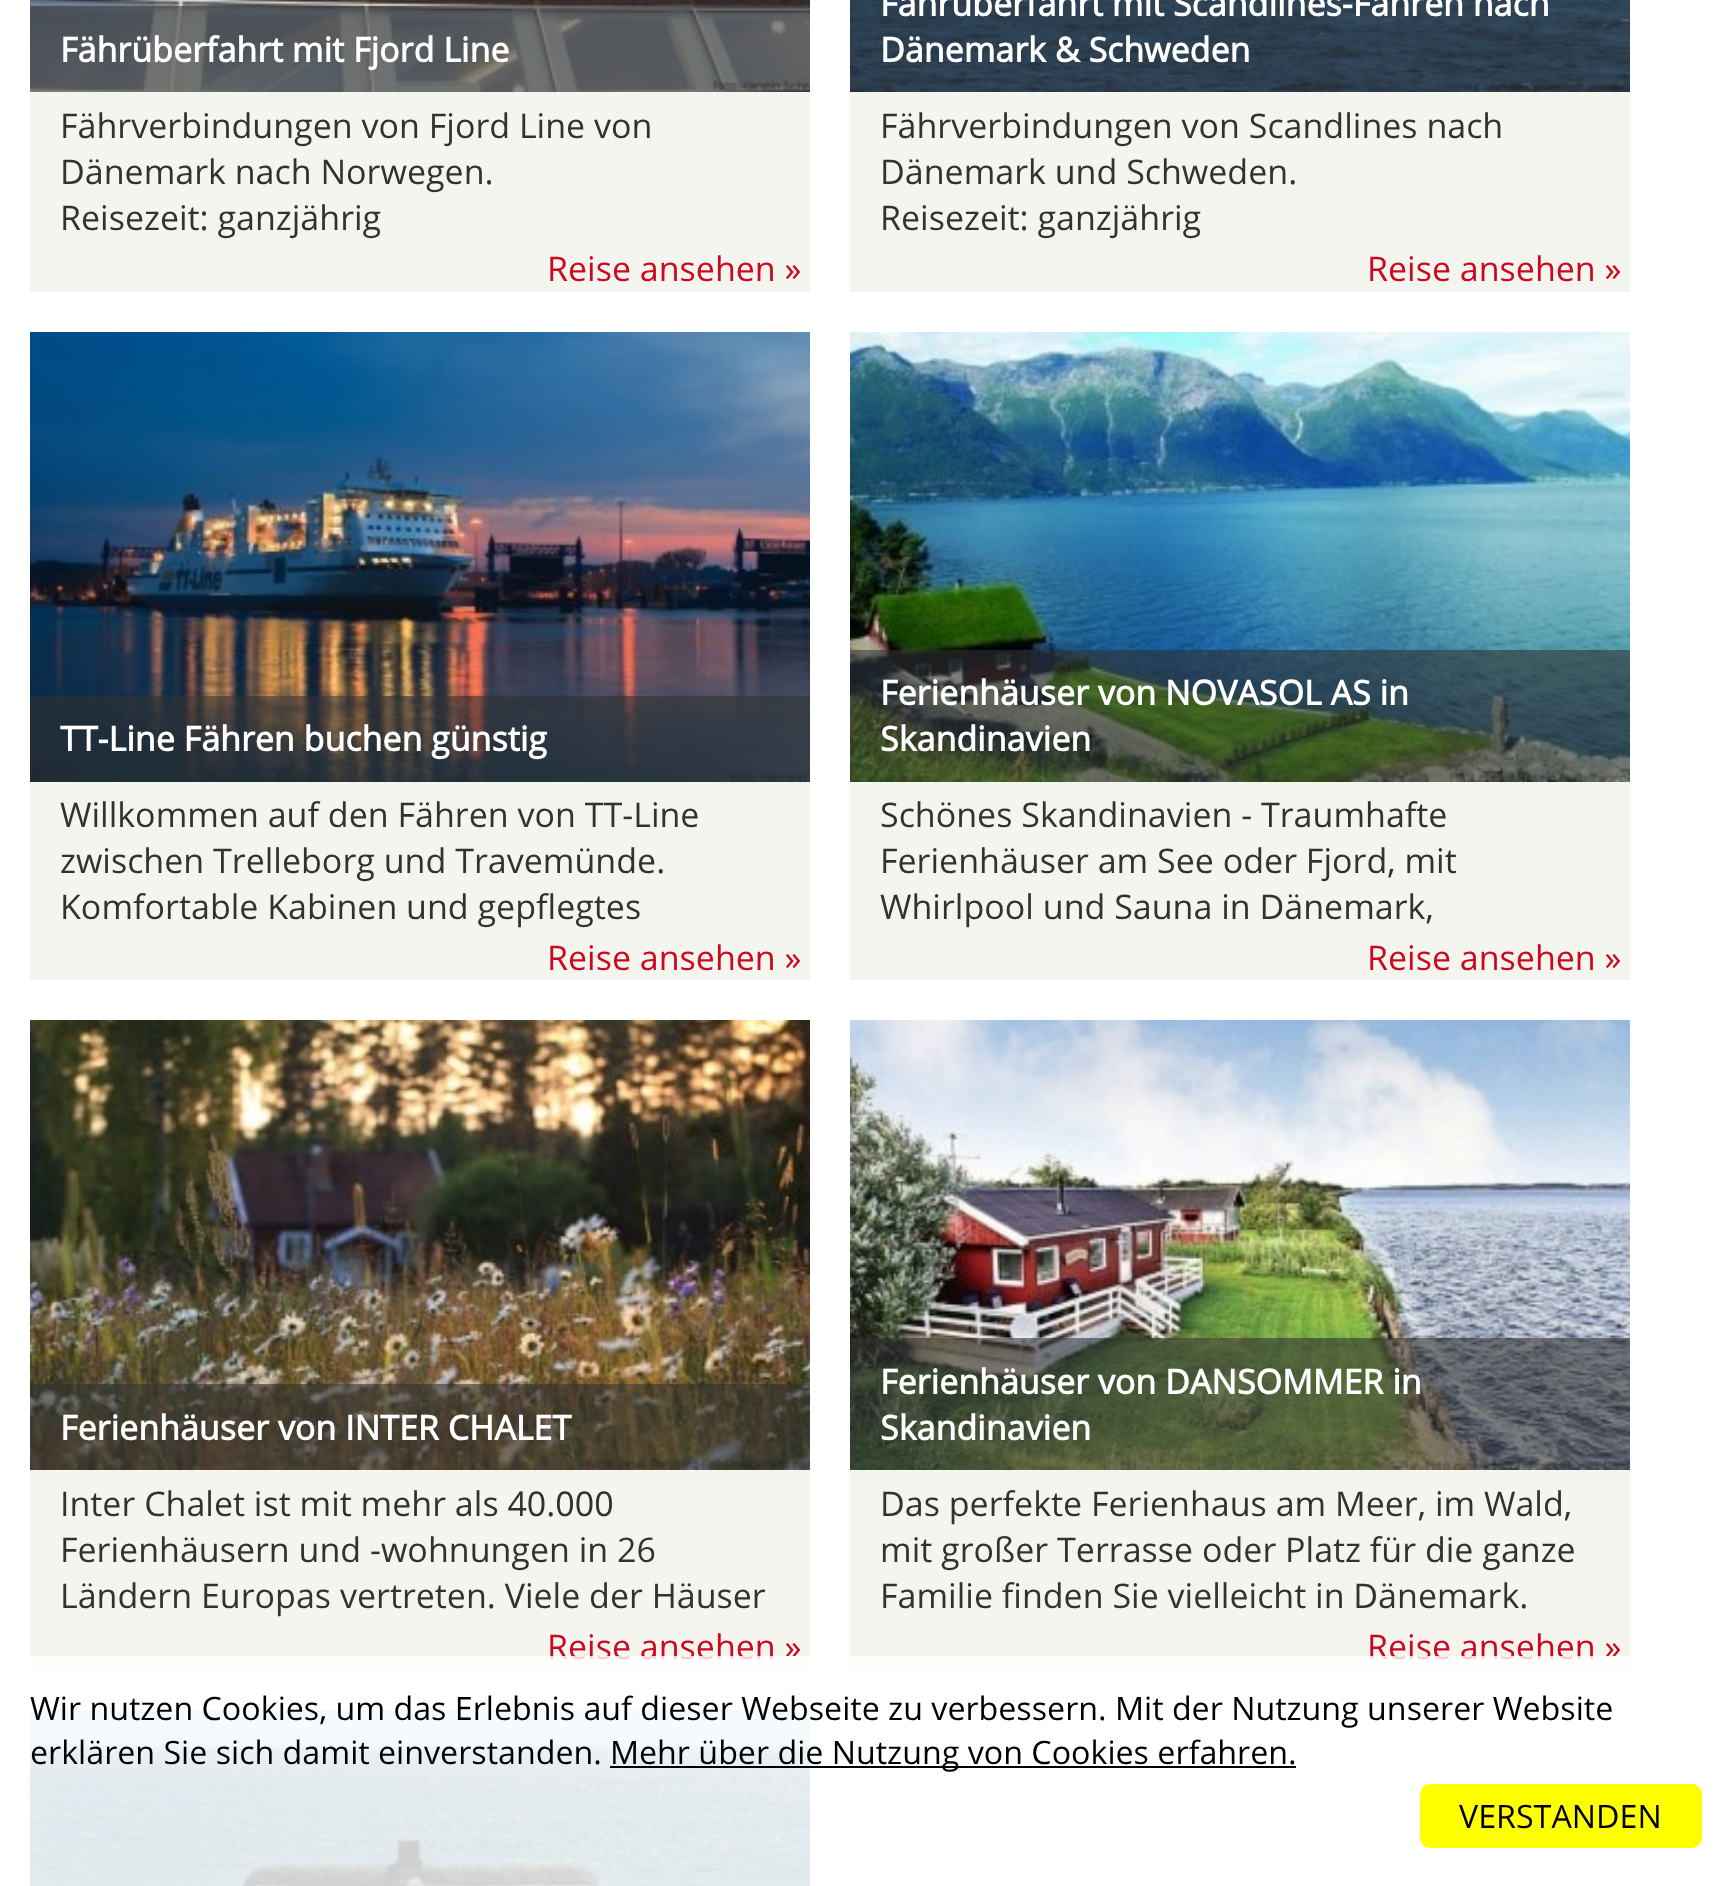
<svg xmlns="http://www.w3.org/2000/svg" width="1731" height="1886">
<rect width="100%" height="100%" fill="#fff"/>
<rect x="30" y="92" width="780" height="200" fill="#f5f5ef"/>
<image x="30" y="0" width="780" height="92" href="media/1.png"/>
<text x="60" y="62" style="font-family:Open Sans;font-size:34px;font-weight:bold;fill:#fff">Fährüberfahrt mit Fjord Line</text>
<text x="60" y="138" style="font-family:Open Sans;font-size:34px;fill:#323232">Fährverbindungen von Fjord Line von</text>
<text x="60" y="184" style="font-family:Open Sans;font-size:34px;fill:#323232">Dänemark nach Norwegen.</text>
<text x="60" y="230" style="font-family:Open Sans;font-size:34px;fill:#323232">Reisezeit: ganzjährig</text>
<text x="547" y="281" style="font-family:Open Sans;font-size:34px;fill:#cc071e">Reise ansehen »</text>
<rect x="850" y="92" width="780" height="200" fill="#f5f5ef"/>
<image x="850" y="0" width="780" height="92" href="media/2.png"/>
<text x="880" y="16" style="font-family:Open Sans;font-size:34px;font-weight:bold;fill:#fff">Fährüberfahrt mit Scandlines-Fähren nach</text>
<text x="880" y="62" style="font-family:Open Sans;font-size:34px;font-weight:bold;fill:#fff">Dänemark &amp; Schweden</text>
<text x="880" y="138" style="font-family:Open Sans;font-size:34px;fill:#323232">Fährverbindungen von Scandlines nach</text>
<text x="880" y="184" style="font-family:Open Sans;font-size:34px;fill:#323232">Dänemark und Schweden.</text>
<text x="880" y="230" style="font-family:Open Sans;font-size:34px;fill:#323232">Reisezeit: ganzjährig</text>
<text x="1367" y="281" style="font-family:Open Sans;font-size:34px;fill:#cc071e">Reise ansehen »</text>
<rect x="30" y="782" width="780" height="198" fill="#f5f5ef"/>
<image x="30" y="332" width="780" height="450" href="media/3.png"/>
<rect x="30" y="696" width="780" height="86" fill="#32323294"/>
<text x="60" y="751" style="font-family:Open Sans;font-size:34px;font-weight:bold;fill:#fff">TT-Line Fähren buchen günstig</text>
<text x="60" y="827" style="font-family:Open Sans;font-size:34px;fill:#323232">Willkommen auf den Fähren von TT-Line</text>
<text x="60" y="873" style="font-family:Open Sans;font-size:34px;fill:#323232">zwischen Trelleborg und Travemünde.</text>
<text x="60" y="919" style="font-family:Open Sans;font-size:34px;fill:#323232">Komfortable Kabinen und gepflegtes</text>
<text x="547" y="970" style="font-family:Open Sans;font-size:34px;fill:#cc071e">Reise ansehen »</text>
<rect x="850" y="782" width="780" height="198" fill="#f5f5ef"/>
<image x="850" y="332" width="780" height="450" href="media/4.png"/>
<rect x="850" y="650" width="780" height="132" fill="#32323294"/>
<text x="880" y="705" style="font-family:Open Sans;font-size:34px;font-weight:bold;fill:#fff">Ferienhäuser von NOVASOL AS in</text>
<text x="880" y="751" style="font-family:Open Sans;font-size:34px;font-weight:bold;fill:#fff">Skandinavien</text>
<text x="880" y="827" style="font-family:Open Sans;font-size:34px;fill:#323232">Schönes Skandinavien - Traumhafte</text>
<text x="880" y="873" style="font-family:Open Sans;font-size:34px;fill:#323232">Ferienhäuser am See oder Fjord, mit</text>
<text x="880" y="919" style="font-family:Open Sans;font-size:34px;fill:#323232">Whirlpool und Sauna in Dänemark,</text>
<text x="1367" y="970" style="font-family:Open Sans;font-size:34px;fill:#cc071e">Reise ansehen »</text>
<rect x="30" y="1470" width="780" height="200" fill="#f5f5ef"/>
<image x="30" y="1020" width="780" height="450" href="media/5.png"/>
<rect x="30" y="1384" width="780" height="86" fill="#32323294"/>
<text x="60" y="1440" style="font-family:Open Sans;font-size:34px;font-weight:bold;fill:#fff">Ferienhäuser von INTER CHALET</text>
<text x="60" y="1516" style="font-family:Open Sans;font-size:34px;fill:#323232">Inter Chalet ist mit mehr als 40.000</text>
<text x="60" y="1562" style="font-family:Open Sans;font-size:34px;fill:#323232">Ferienhäusern und -wohnungen in 26</text>
<text x="60" y="1608" style="font-family:Open Sans;font-size:34px;fill:#323232">Ländern Europas vertreten. Viele der Häuser</text>
<text x="547" y="1659" style="font-family:Open Sans;font-size:34px;fill:#cc071e">Reise ansehen »</text>
<rect x="850" y="1470" width="780" height="200" fill="#f5f5ef"/>
<image x="850" y="1020" width="780" height="450" href="media/6.png"/>
<rect x="850" y="1338" width="780" height="132" fill="#32323294"/>
<text x="880" y="1394" style="font-family:Open Sans;font-size:34px;font-weight:bold;fill:#fff">Ferienhäuser von DANSOMMER in</text>
<text x="880" y="1440" style="font-family:Open Sans;font-size:34px;font-weight:bold;fill:#fff">Skandinavien</text>
<text x="880" y="1516" style="font-family:Open Sans;font-size:34px;fill:#323232">Das perfekte Ferienhaus am Meer, im Wald,</text>
<text x="880" y="1562" style="font-family:Open Sans;font-size:34px;fill:#323232">mit großer Terrasse oder Platz für die ganze</text>
<text x="880" y="1608" style="font-family:Open Sans;font-size:34px;fill:#323232">Familie finden Sie vielleicht in Dänemark.</text>
<text x="1367" y="1659" style="font-family:Open Sans;font-size:34px;fill:#cc071e">Reise ansehen »</text>
<image x="30" y="1710" width="780" height="176" href="media/7.png"/>
<rect x="30" y="1656" width="1600" height="230" fill="#ffffffcc"/>
<text x="30" y="1720" style="font-family:Open Sans;font-size:32.2px;fill:#000">Wir nutzen Cookies, um das Erlebnis auf dieser Webseite zu verbessern. Mit der Nutzung unserer Website</text>
<text x="30" y="1764" style="font-family:Open Sans;font-size:32.2px;fill:#000">erklären Sie sich damit einverstanden.</text>
<rect x="610" y="1766" width="686" height="2" fill="#000"/>
<text x="610" y="1764" style="font-family:Open Sans;font-size:32.2px;fill:#000">Mehr über die Nutzung von Cookies erfahren.</text>
<rect x="1420" y="1784" width="282" height="64" rx="10" fill="#ff0"/>
<text x="1459" y="1828" style="font-family:Open Sans;font-size:32.2px;fill:#000">VERSTANDEN</text>
</svg>
